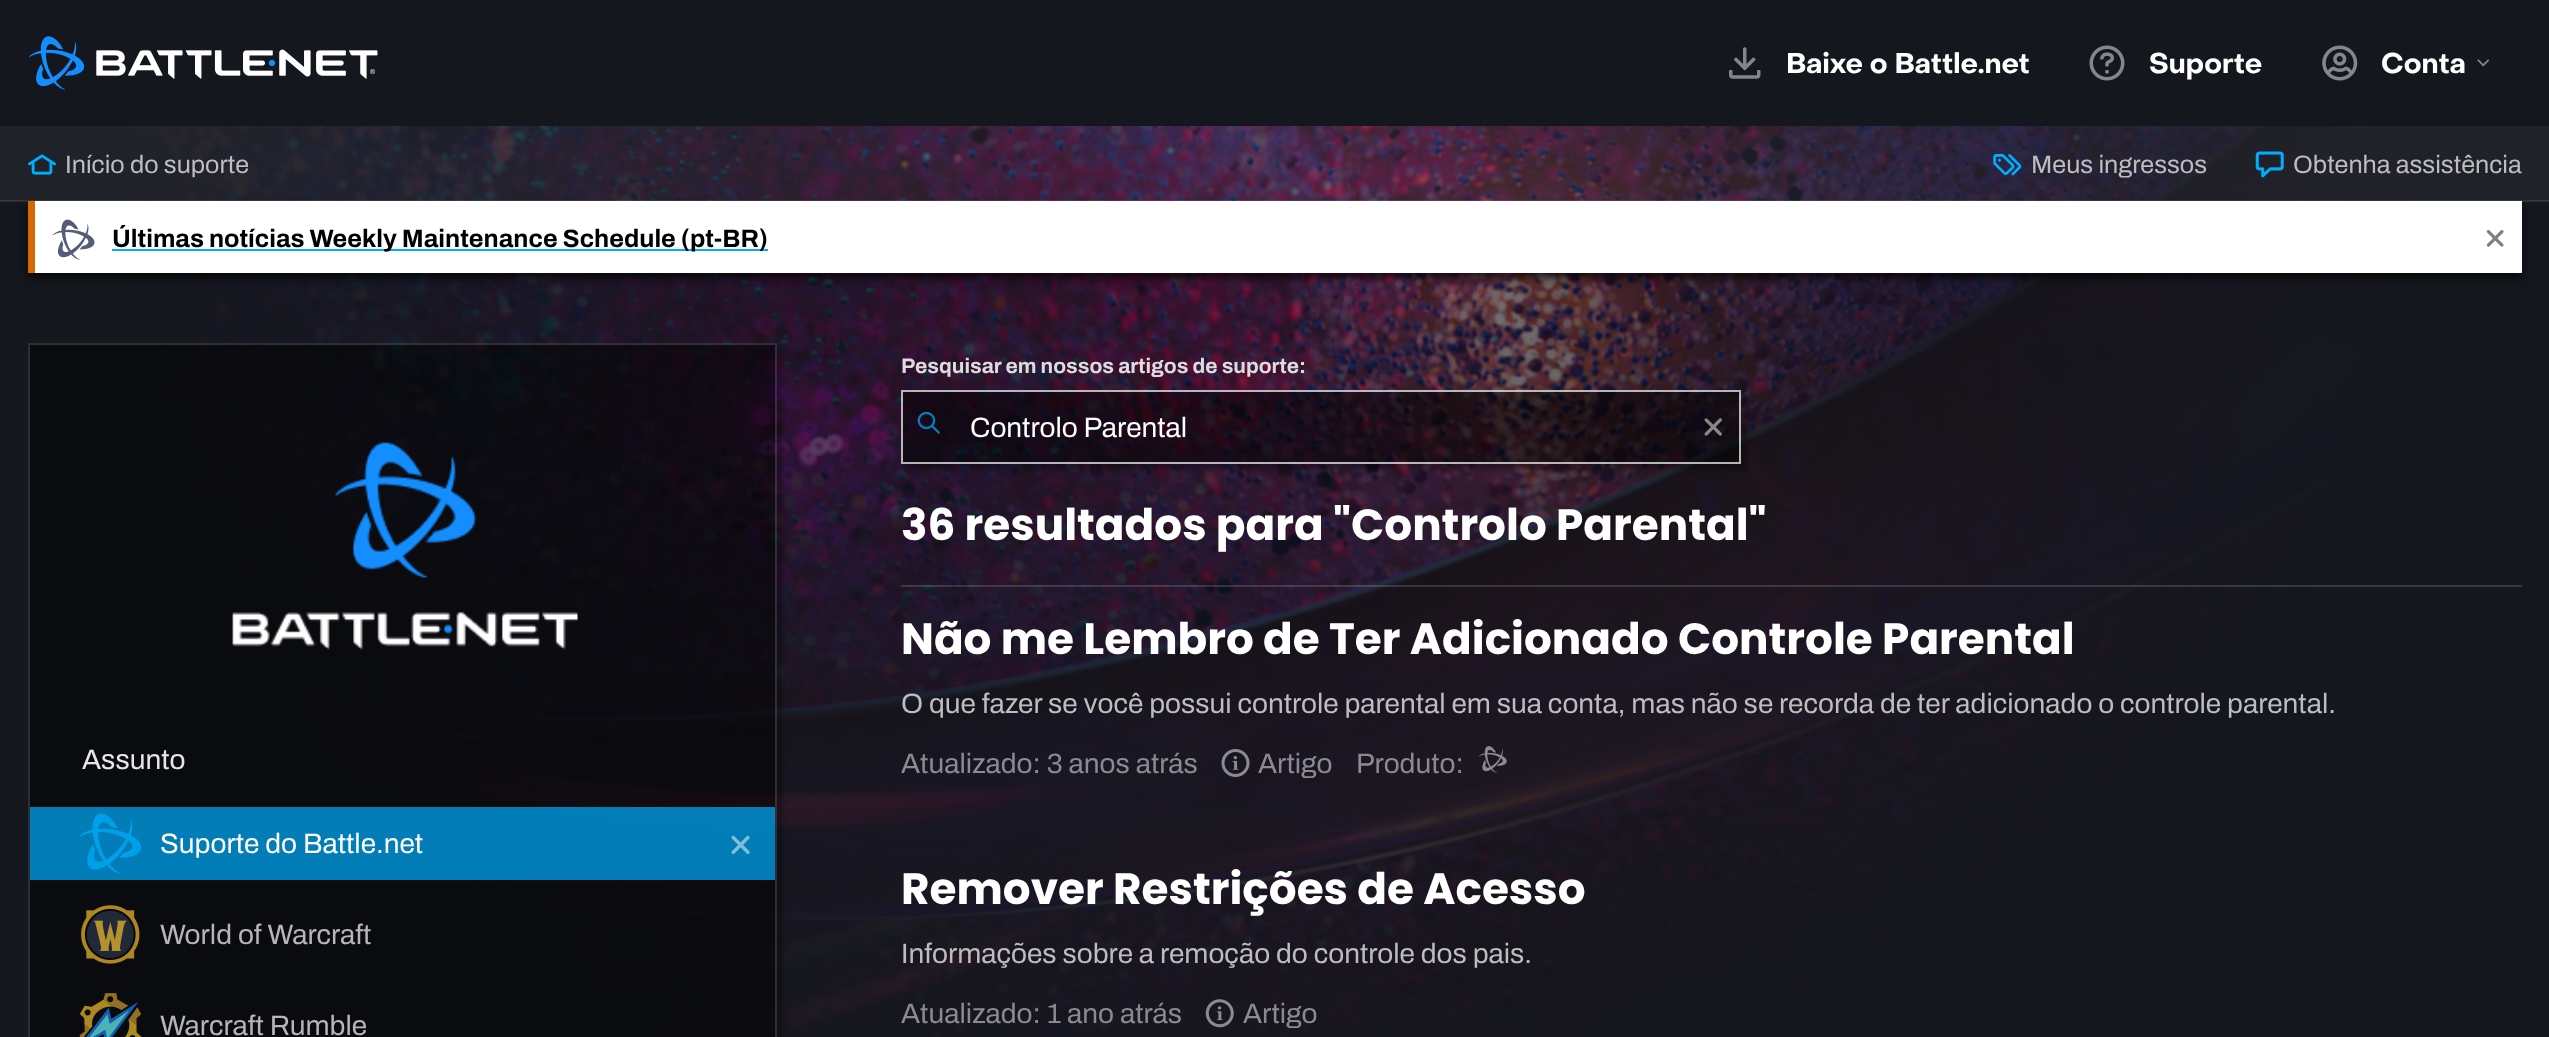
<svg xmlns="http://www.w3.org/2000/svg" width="2549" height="1037">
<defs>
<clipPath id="clip1"><rect x="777" y="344" width="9" height="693"/></clipPath>
<clipPath id="clip2"><path d="M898 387h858v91h-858zm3 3h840v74h-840z" clip-rule="evenodd"/></clipPath>
</defs>
<rect width="100%" height="100%" fill="#15171e"/>
<image x="29" y="36" width="349" height="54" href="media/1.png"/>
<image x="1729" y="47" width="32" height="32" href="media/2.png"/>
<text x="1786" y="73" style="font-family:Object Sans;font-size:28px;font-weight:bold;fill:#fff">Baixe o Battle.net</text>
<image x="2089" y="45" width="36" height="36" href="media/3.png"/>
<text x="2149" y="73" style="font-family:Object Sans;font-size:28px;font-weight:bold;fill:#fff">Suporte</text>
<image x="2322" y="45" width="36" height="36" href="media/4.png"/>
<text x="2381" y="73" style="font-family:Object Sans;font-size:28px;font-weight:bold;fill:#fff">Conta</text>
<image x="2477" y="59" width="13" height="8" href="media/5.png"/>
<image x="135" y="126" width="2275" height="911" href="media/11.png"/>
<rect y="126" width="2549" height="75" fill="#ffffff0d"/>
<rect y="200" width="2549" height="2" fill="#ffffff1a"/>
<image x="28" y="154" width="28" height="21" href="media/6.png"/>
<text x="65" y="173" style="font-family:Archivo;font-size:25.2px;fill:#bdbdbf">Início do suporte</text>
<image x="1993" y="154" width="29" height="22" href="media/7.png"/>
<text x="2031" y="173" style="font-family:Archivo;font-size:25.2px;fill:#bdbdbf">Meus ingressos</text>
<image x="2255" y="151" width="29" height="27" href="media/8.png"/>
<text x="2293" y="173" style="font-family:Archivo;font-size:25.2px;fill:#bdbdbf">Obtenha assistência</text>
<rect x="28" y="207" width="2494" height="71" fill="#000000b3" filter="blur(4.5px)"/>
<rect x="35" y="201" width="2487" height="72" fill="#fff"/>
<image x="2486" y="230" width="18" height="17" href="media/9.png"/>
<rect x="28" y="201" width="7" height="72" fill="#d56900"/>
<image x="52" y="219" width="43" height="41" href="media/10.png"/>
<rect x="112" y="249" width="656" height="2" fill="#00aeff"/>
<text x="112" y="247" style="font-family:Archivo;font-size:25.2px;font-weight:bold;fill:#000">Últimas notícias Weekly Maintenance Schedule (pt-BR)</text>
<g clip-path="url(#clip1)">
<rect x="33" y="348" width="749" height="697" fill="#0000004d" filter="blur(2.5px)"/>
</g>
<rect x="28" y="343" width="749" height="694" fill="#00000080"/>
<rect x="29" y="344" width="747" height="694" fill="none" stroke="#ffffff26" stroke-width="2"/>
<image x="232" y="442" width="346" height="208" href="media/12.png"/>
<text x="82" y="769" style="font-family:Archivo;font-size:28px;fill:#e7e7e7">Assunto</text>
<rect x="30" y="807" width="745" height="73" fill="#00aeffb3"/>
<image x="79" y="813" width="63" height="61" href="media/13.png"/>
<text x="160" y="853" style="font-family:Archivo;font-size:28px;fill:#fff">Suporte do Battle.net</text>
<image x="731" y="835" width="19" height="19" href="media/14.png"/>
<image x="81" y="905" width="59" height="59" href="media/15.png"/>
<text x="160" y="944" style="font-family:Archivo;font-size:28px;fill:#b6b6b7">World of Warcraft</text>
<image x="79" y="993" width="63" height="44" href="media/16.png"/>
<text x="160" y="1035" style="font-family:Archivo;font-size:28px;fill:#b6b6b7">Warcraft Rumble</text>
<text x="901" y="373" style="font-family:Archivo;font-size:21px;font-weight:bold;fill:#dfdade">Pesquisar em nossos artigos de suporte:</text>
<rect x="901" y="390" width="840" height="74" fill="#00000080"/>
<g clip-path="url(#clip2)">
<rect x="907" y="396" width="840" height="73" fill="#0000004d" filter="blur(2.5px)"/>
</g>
<rect x="902" y="391" width="838" height="72" fill="none" stroke="#ffffffb3" stroke-width="2"/>
<image x="917" y="411" width="23" height="23" href="media/17.png"/>
<text x="970" y="437" style="font-family:Archivo;font-size:28px;fill:#fff">Controlo Parental</text>
<image x="1704" y="418" width="18" height="18" href="media/18.png"/>
<text x="901" y="540" style="font-family:Poppins;font-size:43.75px;font-weight:bold;fill:#fff">36 resultados para "Controlo Parental"</text>
<rect x="901" y="585" width="1621" height="2" fill="#ffffff26"/>
<text x="901" y="654" style="font-family:Poppins;font-size:43.75px;font-weight:bold;fill:#fff">Não me Lembro de Ter Adicionado Controle Parental</text>
<text x="901" y="713" style="font-family:Archivo;font-size:28px;fill:#bdbdbf">O que fazer se você possui controle parental em sua conta, mas não se recorda de ter adicionado o controle parental.</text>
<text x="901" y="773" style="font-family:Archivo;font-size:28px;fill:#8c8a91">Atualizado: 3 anos atrás</text>
<image x="1221" y="749" width="29" height="28" href="media/19.png"/>
<text x="1258" y="773" style="font-family:Archivo;font-size:28px;fill:#8c8a91">Artigo</text>
<text x="1356" y="773" style="font-family:Archivo;font-size:28px;fill:#8c8a91">Produto:</text>
<image x="1478" y="746" width="29" height="27" href="media/20.png"/>
<text x="901" y="904" style="font-family:Poppins;font-size:43.75px;font-weight:bold;fill:#fff">Remover Restrições de Acesso</text>
<text x="901" y="963" style="font-family:Archivo;font-size:28px;fill:#bdbdbf">Informações sobre a remoção do controle dos pais.</text>
<text x="901" y="1023" style="font-family:Archivo;font-size:28px;fill:#8c8a91">Atualizado: 1 ano atrás</text>
<image x="1205" y="999" width="29" height="29" href="media/21.png"/>
<text x="1243" y="1023" style="font-family:Archivo;font-size:28px;fill:#8c8a91">Artigo</text>
</svg>
